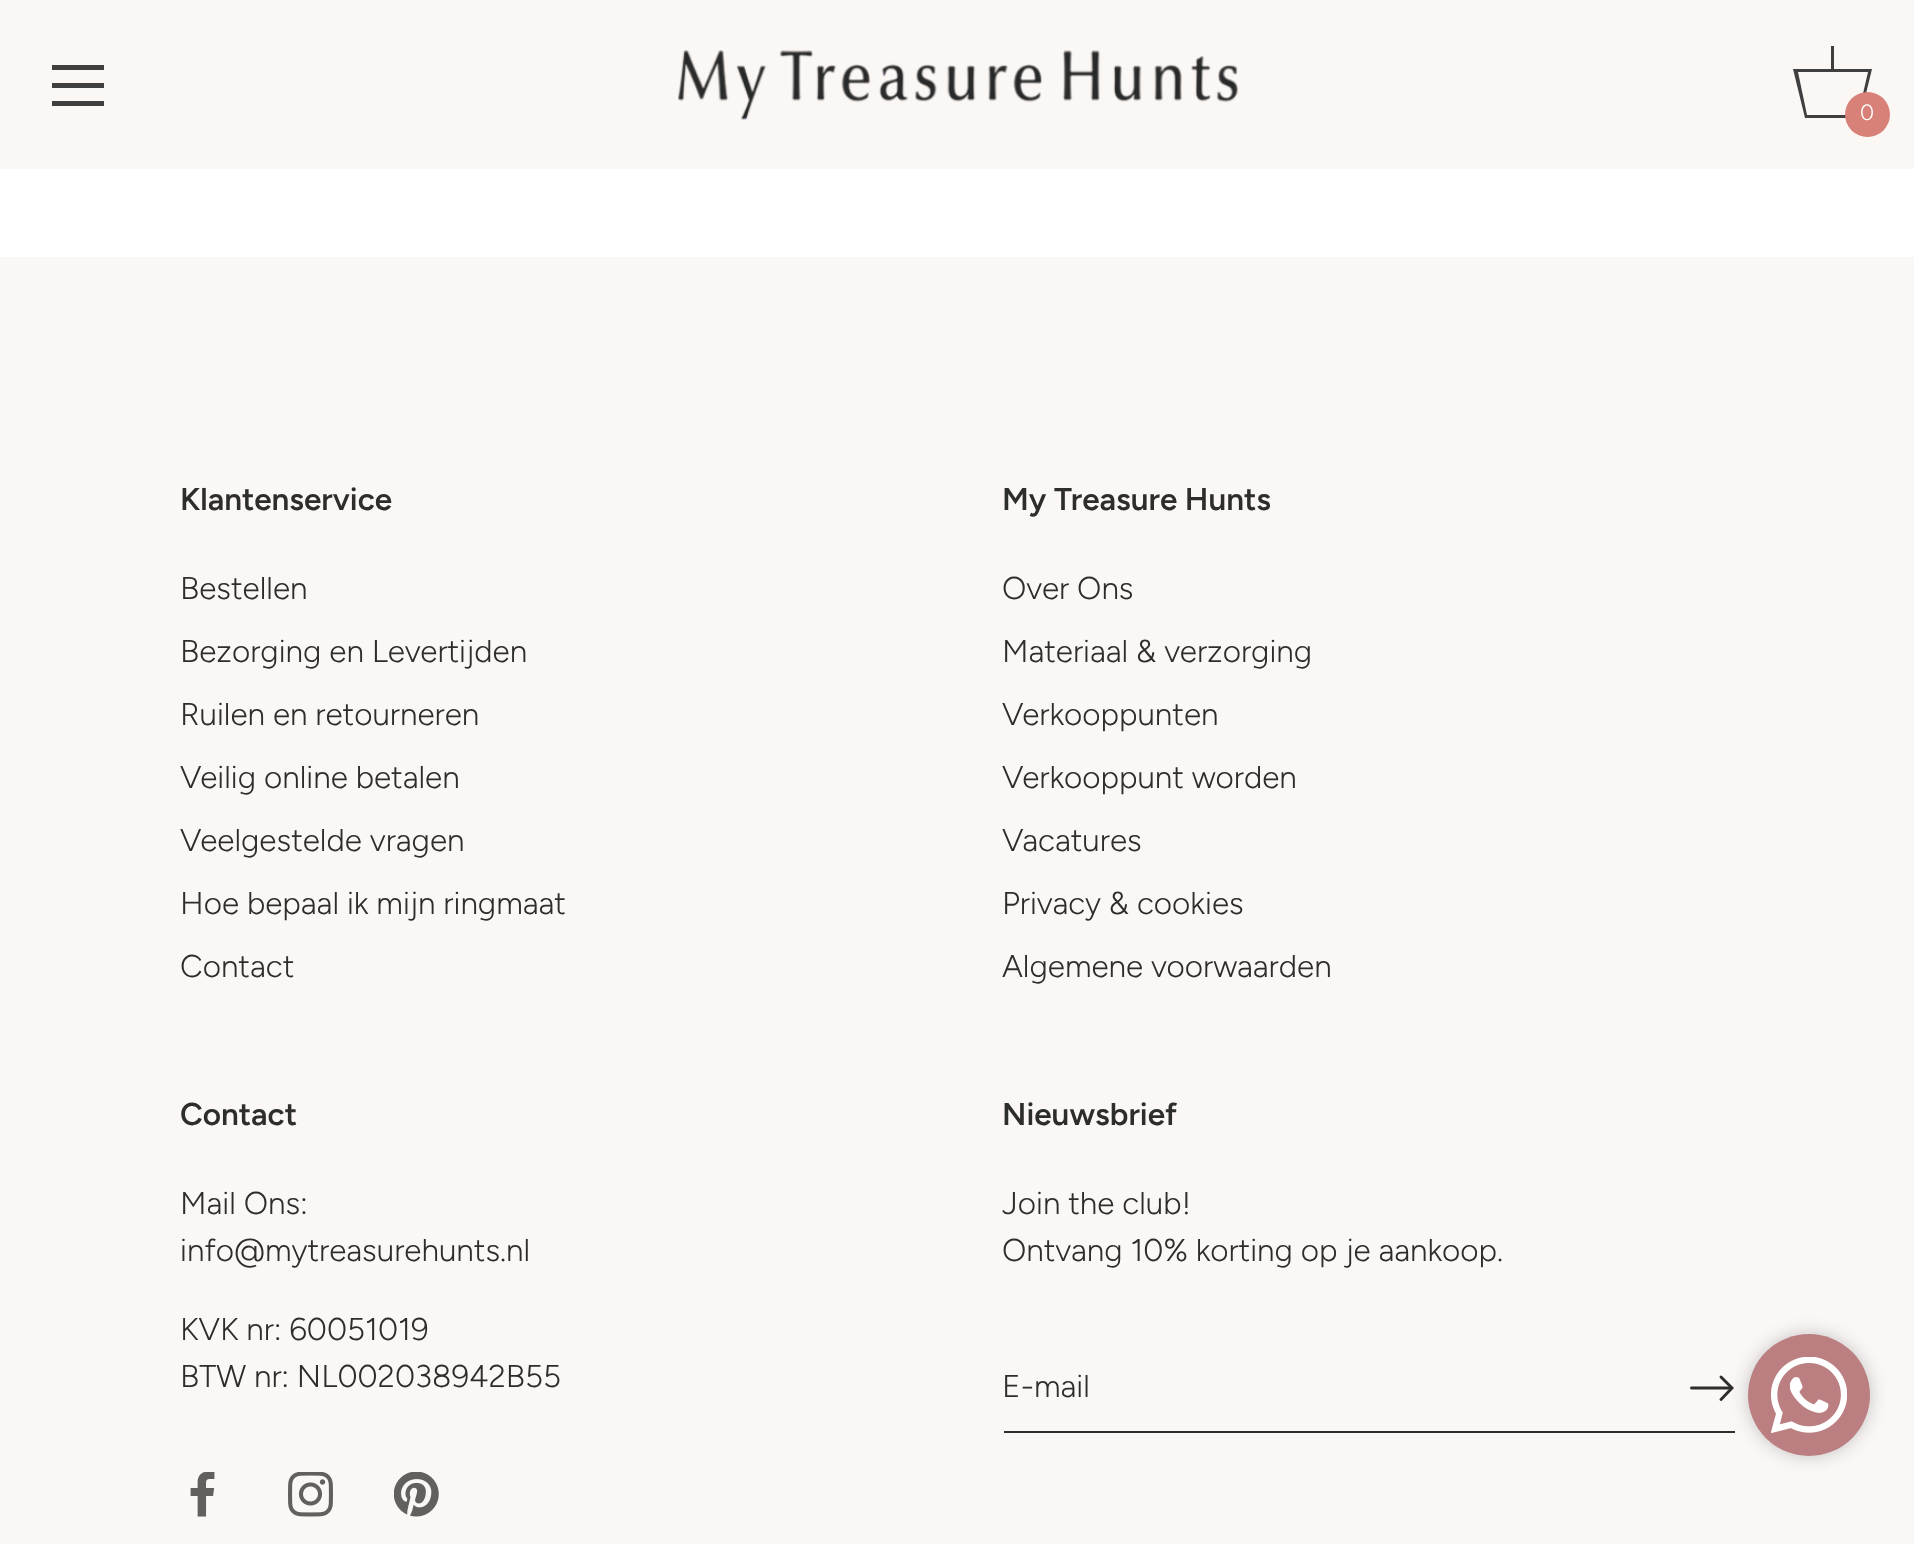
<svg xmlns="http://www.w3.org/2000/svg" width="1914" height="1544">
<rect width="100%" height="100%" fill="#fff"/>
<rect width="1914" height="169" fill="#fbf7f5"/>
<rect x="52" y="65" width="52" height="5" fill="#3f3f3f"/>
<rect x="52" y="83" width="52" height="5" fill="#3f3f3f"/>
<rect x="52" y="101" width="52" height="5" fill="#3f3f3f"/>
<image x="678" y="50" width="561" height="70" href="media/1.png"/>
<path d="M1868 72l-10 43h-51l-9-43h70m4-3h-79l12 49h55z" fill="#3f3f3f"/>
<rect x="1831" y="46" width="3" height="23" fill="#3f3f3f"/>
<circle cx="1867.5" cy="114.5" r="22.5" fill="#d78179"/>
<text x="1860" y="120" style="font-family:Figtree;font-size:22px;font-weight:300;fill:#fff">0</text>
<rect y="257" width="1914" height="1287" fill="#fbf7f5"/>
<text x="180" y="510" style="font-family:Figtree;font-size:31.5px;font-weight:600;fill:#2d2d2b">Klantenservice</text>
<text x="180" y="599" style="font-family:Figtree;font-size:31.5px;font-weight:300;fill:#2d2d2b">Bestellen</text>
<text x="180" y="662" style="font-family:Figtree;font-size:31.5px;font-weight:300;fill:#2d2d2b">Bezorging en Levertijden</text>
<text x="180" y="725" style="font-family:Figtree;font-size:31.5px;font-weight:300;fill:#2d2d2b">Ruilen en retourneren</text>
<text x="180" y="788" style="font-family:Figtree;font-size:31.5px;font-weight:300;fill:#2d2d2b">Veilig online betalen</text>
<text x="180" y="851" style="font-family:Figtree;font-size:31.5px;font-weight:300;fill:#2d2d2b">Veelgestelde vragen</text>
<text x="180" y="914" style="font-family:Figtree;font-size:31.5px;font-weight:300;fill:#2d2d2b">Hoe bepaal ik mijn ringmaat</text>
<text x="180" y="977" style="font-family:Figtree;font-size:31.5px;font-weight:300;fill:#2d2d2b">Contact</text>
<text x="1002" y="510" style="font-family:Figtree;font-size:31.5px;font-weight:600;fill:#2d2d2b">My Treasure Hunts</text>
<text x="1002" y="599" style="font-family:Figtree;font-size:31.5px;font-weight:300;fill:#2d2d2b">Over Ons</text>
<text x="1002" y="662" style="font-family:Figtree;font-size:31.5px;font-weight:300;fill:#2d2d2b">Materiaal &amp; verzorging</text>
<text x="1002" y="725" style="font-family:Figtree;font-size:31.5px;font-weight:300;fill:#2d2d2b">Verkooppunten</text>
<text x="1002" y="788" style="font-family:Figtree;font-size:31.5px;font-weight:300;fill:#2d2d2b">Verkooppunt worden</text>
<text x="1002" y="851" style="font-family:Figtree;font-size:31.5px;font-weight:300;fill:#2d2d2b">Vacatures</text>
<text x="1002" y="914" style="font-family:Figtree;font-size:31.5px;font-weight:300;fill:#2d2d2b">Privacy &amp; cookies</text>
<text x="1002" y="977" style="font-family:Figtree;font-size:31.5px;font-weight:300;fill:#2d2d2b">Algemene voorwaarden</text>
<text x="180" y="1125" style="font-family:Figtree;font-size:31.5px;font-weight:600;fill:#2d2d2b">Contact</text>
<text x="180" y="1214" style="font-family:Figtree;font-size:31.5px;font-weight:300;fill:#2d2d2b">Mail Ons:</text>
<text x="180" y="1261" style="font-family:Figtree;font-size:31.5px;font-weight:300;fill:#2d2d2b">info@mytreasurehunts.nl</text>
<text x="180" y="1340" style="font-family:Figtree;font-size:31.5px;font-weight:300;fill:#2d2d2b">KVK nr: 60051019</text>
<text x="180" y="1387" style="font-family:Figtree;font-size:31.5px;font-weight:300;fill:#2d2d2b">BTW nr: NL002038942B55</text>
<image x="190" y="1472" width="25" height="45" href="media/2.png"/>
<image x="288" y="1472" width="45" height="45" href="media/3.png"/>
<image x="394" y="1472" width="45" height="45" href="media/4.png"/>
<text x="1002" y="1125" style="font-family:Figtree;font-size:31.5px;font-weight:600;fill:#2d2d2b">Nieuwsbrief</text>
<text x="1002" y="1214" style="font-family:Figtree;font-size:31.5px;font-weight:300;fill:#2d2d2b">Join the club!</text>
<text x="1002" y="1261" style="font-family:Figtree;font-size:31.5px;font-weight:300;fill:#2d2d2b">Ontvang 10% korting op je aankoop.</text>
<rect x="1004" y="1431" width="731" height="2" fill="#2d2d2b"/>
<text x="1002" y="1397" style="font-family:Figtree;font-size:31.5px;font-weight:300;fill:#2d2d2b">E-mail</text>
<path d="M1721 1399.5l11-11.5l-11-11" fill="none" stroke="#2d2d2b" stroke-width="2.9" stroke-linecap="round"/>
<path d="M1731 1388h-39.5" fill="none" stroke="#2d2d2b" stroke-width="2.9" stroke-linecap="round" stroke-linejoin="round"/>
<rect x="1748" y="1334" width="122" height="122" rx="61" fill="#c2c2c2" filter="blur(9px)"/>
<circle cx="1809" cy="1395" r="61" fill="#bb7f82"/>
<image x="1771" y="1357" width="76" height="76" href="media/5.png"/>
</svg>
